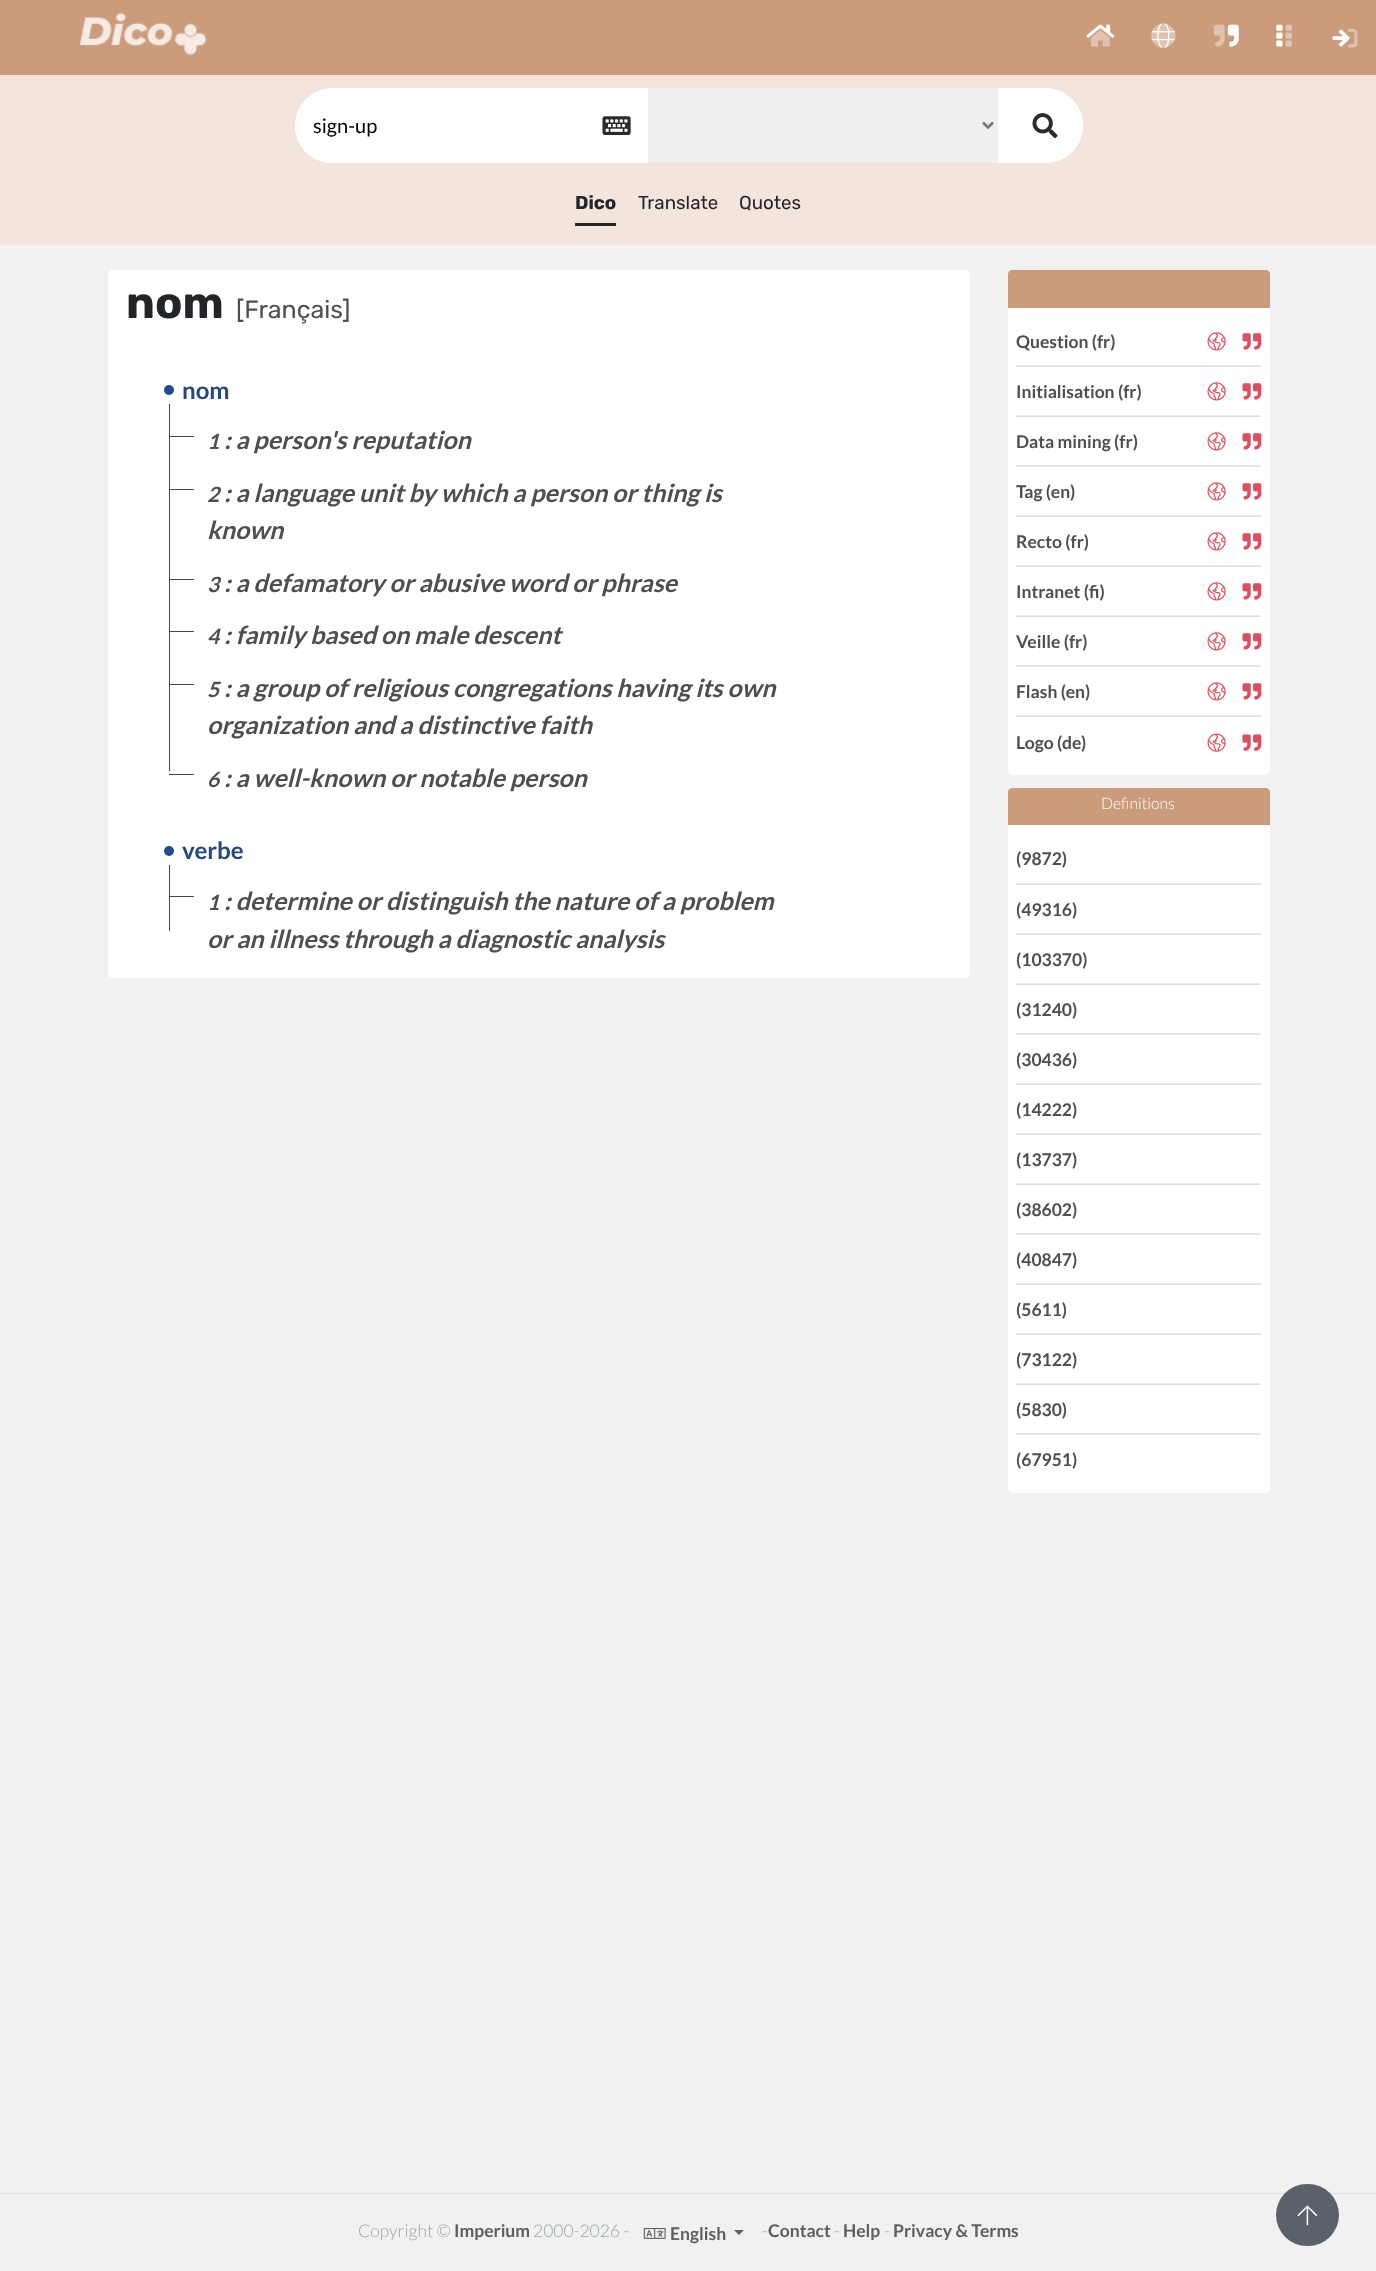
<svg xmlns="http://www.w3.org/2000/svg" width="1376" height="2271">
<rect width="100%" height="100%" fill="#f1f1f1"/>
<rect width="1376" height="75" fill="#ca9c7b"/>
<image x="79" y="12" width="128" height="44" href="media/1.png"/>
<image x="1086" y="24" width="29" height="14" href="media/2.png"/>
<image x="1091" y="30" width="19" height="17" href="media/3.png"/>
<image x="1151" y="23" width="24" height="25" href="media/4.png"/>
<image x="1151" y="23" width="25" height="25" href="media/5.png"/>
<image x="1213" y="24" width="12" height="23" href="media/6.png"/>
<image x="1227" y="24" width="12" height="23" href="media/7.png"/>
<image x="1276" y="24" width="7" height="23" href="media/8.png"/>
<image x="1285" y="24" width="7" height="23" href="media/9.png"/>
<image x="1332" y="29" width="18" height="18" href="media/10.png"/>
<image x="1348" y="28" width="10" height="20" href="media/11.png"/>
<rect y="75" width="1376" height="170" fill="#f3e5dc"/>
<rect x="295" y="88" width="788" height="75" rx="37.5" fill="#fff"/>
<path d="M332 89h305c4.5 0 8 3.5 8 8v58c0 4.5-3.5 8-8 8h-305c-20.5 0-37-16.5-37-37c0-20.5 16.5-37 37-37z" fill="#fff"/>
<text x="313" y="133" style="font-family:Lato;font-size:20px;fill:#000">sign-up</text>
<image x="602" y="116" width="29" height="19" href="media/12.png"/>
<rect x="649" y="88" width="349" height="75" fill="#efefef"/>
<rect x="648" y="88" width="1" height="75" fill="#ececec"/>
<path d="M983 122.5l5 5l5-5" fill="none" stroke="#757575" stroke-width="2.5"/>
<circle cx="1045.5" cy="125.5" r="37.5" fill="#fff"/>
<image x="1032" y="113" width="26" height="26" href="media/13.png"/>
<text x="575" y="209" style="font-family:Rubik;font-size:18.75px;font-weight:bold;fill:#212529">Dico</text>
<rect x="575" y="223" width="41" height="3" fill="#212529"/>
<text x="638" y="209" style="font-family:Rubik;font-size:18.75px;fill:#212529">Translate</text>
<text x="739" y="209" style="font-family:Rubik;font-size:18.75px;fill:#212529">Quotes</text>
<rect x="108" y="270" width="862" height="708" rx="5" fill="#fff"/>
<text x="126" y="318" style="font-family:Rubik;font-size:45px;font-weight:bold;fill:#212529">nom</text>
<text x="236" y="318" style="font-family:Rubik;font-size:25px;fill:#4e4e4e">[Français]</text>
<circle cx="169" cy="390" r="5" fill="#224992"/>
<text x="182" y="399" style="font-family:Lato;font-size:24px;font-weight:bold;fill:#224982">nom</text>
<rect x="169" y="404" width="1" height="367" fill="#4a4a4a"/>
<rect x="169" y="436" width="25" height="1" fill="#4a4a4a"/>
<text x="207" y="449" style="font-family:Lato;font-size:21px;font-weight:bold;font-style:italic;fill:#4e4e4e">1</text>
<text x="224" y="449" style="font-family:Lato;font-size:25px;font-weight:bold;font-style:italic;fill:#4e4e4e">: a person's reputation</text>
<rect x="169" y="489" width="25" height="1" fill="#4a4a4a"/>
<text x="207" y="502" style="font-family:Lato;font-size:21px;font-weight:bold;font-style:italic;fill:#4e4e4e">2</text>
<text x="224" y="502" style="font-family:Lato;font-size:25px;font-weight:bold;font-style:italic;fill:#4e4e4e">: a language unit by which a person or thing is</text>
<text x="207" y="539" style="font-family:Lato;font-size:25px;font-weight:bold;font-style:italic;fill:#4e4e4e">known</text>
<rect x="169" y="579" width="25" height="1" fill="#4a4a4a"/>
<text x="207" y="592" style="font-family:Lato;font-size:21px;font-weight:bold;font-style:italic;fill:#4e4e4e">3</text>
<text x="224" y="592" style="font-family:Lato;font-size:25px;font-weight:bold;font-style:italic;fill:#4e4e4e">: a defamatory or abusive word or phrase</text>
<rect x="169" y="631" width="25" height="1" fill="#4a4a4a"/>
<text x="207" y="644" style="font-family:Lato;font-size:21px;font-weight:bold;font-style:italic;fill:#4e4e4e">4</text>
<text x="224" y="644" style="font-family:Lato;font-size:25px;font-weight:bold;font-style:italic;fill:#4e4e4e">: family based on male descent</text>
<rect x="169" y="684" width="25" height="1" fill="#4a4a4a"/>
<text x="207" y="697" style="font-family:Lato;font-size:21px;font-weight:bold;font-style:italic;fill:#4e4e4e">5</text>
<text x="224" y="697" style="font-family:Lato;font-size:25px;font-weight:bold;font-style:italic;fill:#4e4e4e">: a group of religious congregations having its own</text>
<text x="207" y="734" style="font-family:Lato;font-size:25px;font-weight:bold;font-style:italic;fill:#4e4e4e">organization and a distinctive faith</text>
<rect x="169" y="774" width="25" height="1" fill="#4a4a4a"/>
<text x="207" y="787" style="font-family:Lato;font-size:21px;font-weight:bold;font-style:italic;fill:#4e4e4e">6</text>
<text x="224" y="787" style="font-family:Lato;font-size:25px;font-weight:bold;font-style:italic;fill:#4e4e4e">: a well-known or notable person</text>
<circle cx="169" cy="851" r="5" fill="#224992"/>
<text x="182" y="859" style="font-family:Lato;font-size:24px;font-weight:bold;fill:#224982">verbe</text>
<rect x="169" y="865" width="1" height="66" fill="#4a4a4a"/>
<rect x="169" y="896" width="25" height="1" fill="#4a4a4a"/>
<text x="207" y="910" style="font-family:Lato;font-size:21px;font-weight:bold;font-style:italic;fill:#4e4e4e">1</text>
<text x="224" y="910" style="font-family:Lato;font-size:25px;font-weight:bold;font-style:italic;fill:#4e4e4e">: determine or distinguish the nature of a problem</text>
<text x="207" y="948" style="font-family:Lato;font-size:25px;font-weight:bold;font-style:italic;fill:#4e4e4e">or an illness through a diagnostic analysis</text>
<rect x="1008" y="270" width="262" height="505" rx="5" fill="#fff"/>
<path d="M1012 270h254c2 0 4 2 4 4v34h-262v-34c0-2 2-4 4-4z" fill="#ca9c7b"/>
<rect x="1016" y="365" width="245" height="1" fill="#ececec"/>
<text x="1016" y="348" style="font-family:Lato;font-size:17.5px;font-weight:bold;fill:#4e4e4e">Question (fr)</text>
<image x="1207" y="332" width="19" height="19" href="media/14.png"/>
<image x="1242" y="333" width="20" height="17" href="media/15.png"/>
<rect x="1016" y="366" width="245" height="1" fill="#dfdfdf"/>
<rect x="1016" y="415" width="245" height="1" fill="#ececec"/>
<text x="1016" y="398" style="font-family:Lato;font-size:17.5px;font-weight:bold;fill:#4e4e4e">Initialisation (fr)</text>
<image x="1207" y="382" width="19" height="19" href="media/14.png"/>
<image x="1242" y="383" width="20" height="17" href="media/15.png"/>
<rect x="1016" y="416" width="245" height="1" fill="#dfdfdf"/>
<rect x="1016" y="465" width="245" height="1" fill="#ececec"/>
<text x="1016" y="448" style="font-family:Lato;font-size:17.5px;font-weight:bold;fill:#4e4e4e">Data mining (fr)</text>
<image x="1207" y="432" width="19" height="19" href="media/14.png"/>
<image x="1242" y="433" width="20" height="17" href="media/15.png"/>
<rect x="1016" y="466" width="245" height="1" fill="#dfdfdf"/>
<rect x="1016" y="515" width="245" height="1" fill="#ececec"/>
<text x="1016" y="498" style="font-family:Lato;font-size:17.5px;font-weight:bold;fill:#4e4e4e">Tag (en)</text>
<image x="1207" y="482" width="19" height="19" href="media/14.png"/>
<image x="1242" y="483" width="20" height="17" href="media/15.png"/>
<rect x="1016" y="516" width="245" height="1" fill="#dfdfdf"/>
<rect x="1016" y="565" width="245" height="1" fill="#ececec"/>
<text x="1016" y="548" style="font-family:Lato;font-size:17.5px;font-weight:bold;fill:#4e4e4e">Recto (fr)</text>
<image x="1207" y="532" width="19" height="19" href="media/14.png"/>
<image x="1242" y="533" width="20" height="17" href="media/15.png"/>
<rect x="1016" y="566" width="245" height="1" fill="#dfdfdf"/>
<rect x="1016" y="615" width="245" height="1" fill="#ececec"/>
<text x="1016" y="598" style="font-family:Lato;font-size:17.5px;font-weight:bold;fill:#4e4e4e">Intranet (fi)</text>
<image x="1207" y="582" width="19" height="19" href="media/14.png"/>
<image x="1242" y="583" width="20" height="17" href="media/15.png"/>
<rect x="1016" y="616" width="245" height="1" fill="#dfdfdf"/>
<rect x="1016" y="665" width="245" height="1" fill="#ececec"/>
<text x="1016" y="648" style="font-family:Lato;font-size:17.5px;font-weight:bold;fill:#4e4e4e">Veille (fr)</text>
<image x="1207" y="632" width="19" height="19" href="media/14.png"/>
<image x="1242" y="633" width="20" height="17" href="media/15.png"/>
<rect x="1016" y="666" width="245" height="1" fill="#dfdfdf"/>
<rect x="1016" y="715" width="245" height="1" fill="#ececec"/>
<text x="1016" y="698" style="font-family:Lato;font-size:17.5px;font-weight:bold;fill:#4e4e4e">Flash (en)</text>
<image x="1207" y="682" width="19" height="19" href="media/14.png"/>
<image x="1242" y="683" width="20" height="17" href="media/15.png"/>
<rect x="1016" y="716" width="245" height="1" fill="#dfdfdf"/>
<text x="1016" y="749" style="font-family:Lato;font-size:17.5px;font-weight:bold;fill:#4e4e4e">Logo (de)</text>
<image x="1207" y="733" width="19" height="19" href="media/16.png"/>
<image x="1242" y="734" width="20" height="17" href="media/17.png"/>
<rect x="1008" y="788" width="262" height="705" rx="5" fill="#fff"/>
<path d="M1012 788h254c2 0 4 2 4 4v33h-262v-33c0-2 2-4 4-4z" fill="#ca9c7b"/>
<text x="1101" y="809" style="font-family:Lato;font-size:15.75px;font-weight:300;fill:#fff">Definitions</text>
<rect x="1016" y="883" width="245" height="1" fill="#ececec"/>
<text x="1016" y="865" style="font-family:Lato;font-size:17.5px;font-weight:bold;fill:#4e4e4e">(9872)</text>
<rect x="1016" y="884" width="245" height="1" fill="#dfdfdf"/>
<rect x="1016" y="933" width="245" height="1" fill="#ececec"/>
<text x="1016" y="916" style="font-family:Lato;font-size:17.5px;font-weight:bold;fill:#4e4e4e">(49316)</text>
<rect x="1016" y="934" width="245" height="1" fill="#dfdfdf"/>
<rect x="1016" y="983" width="245" height="1" fill="#ececec"/>
<text x="1016" y="966" style="font-family:Lato;font-size:17.5px;font-weight:bold;fill:#4e4e4e">(103370)</text>
<rect x="1016" y="984" width="245" height="1" fill="#dfdfdf"/>
<rect x="1016" y="1033" width="245" height="1" fill="#ececec"/>
<text x="1016" y="1016" style="font-family:Lato;font-size:17.5px;font-weight:bold;fill:#4e4e4e">(31240)</text>
<rect x="1016" y="1034" width="245" height="1" fill="#dfdfdf"/>
<rect x="1016" y="1083" width="245" height="1" fill="#ececec"/>
<text x="1016" y="1066" style="font-family:Lato;font-size:17.5px;font-weight:bold;fill:#4e4e4e">(30436)</text>
<rect x="1016" y="1084" width="245" height="1" fill="#dfdfdf"/>
<rect x="1016" y="1133" width="245" height="1" fill="#ececec"/>
<text x="1016" y="1116" style="font-family:Lato;font-size:17.5px;font-weight:bold;fill:#4e4e4e">(14222)</text>
<rect x="1016" y="1134" width="245" height="1" fill="#dfdfdf"/>
<rect x="1016" y="1183" width="245" height="1" fill="#ececec"/>
<text x="1016" y="1166" style="font-family:Lato;font-size:17.5px;font-weight:bold;fill:#4e4e4e">(13737)</text>
<rect x="1016" y="1184" width="245" height="1" fill="#dfdfdf"/>
<rect x="1016" y="1233" width="245" height="1" fill="#ececec"/>
<text x="1016" y="1216" style="font-family:Lato;font-size:17.5px;font-weight:bold;fill:#4e4e4e">(38602)</text>
<rect x="1016" y="1234" width="245" height="1" fill="#dfdfdf"/>
<rect x="1016" y="1283" width="245" height="1" fill="#ececec"/>
<text x="1016" y="1266" style="font-family:Lato;font-size:17.5px;font-weight:bold;fill:#4e4e4e">(40847)</text>
<rect x="1016" y="1284" width="245" height="1" fill="#dfdfdf"/>
<rect x="1016" y="1333" width="245" height="1" fill="#ececec"/>
<text x="1016" y="1316" style="font-family:Lato;font-size:17.5px;font-weight:bold;fill:#4e4e4e">(5611)</text>
<rect x="1016" y="1334" width="245" height="1" fill="#dfdfdf"/>
<rect x="1016" y="1383" width="245" height="1" fill="#ececec"/>
<text x="1016" y="1366" style="font-family:Lato;font-size:17.5px;font-weight:bold;fill:#4e4e4e">(73122)</text>
<rect x="1016" y="1384" width="245" height="1" fill="#dfdfdf"/>
<rect x="1016" y="1433" width="245" height="1" fill="#ececec"/>
<text x="1016" y="1416" style="font-family:Lato;font-size:17.5px;font-weight:bold;fill:#4e4e4e">(5830)</text>
<rect x="1016" y="1434" width="245" height="1" fill="#dfdfdf"/>
<text x="1016" y="1466" style="font-family:Lato;font-size:17.5px;font-weight:bold;fill:#4e4e4e">(67951)</text>
<rect y="2193" width="1376" height="1" fill="#dfe2e3"/>
<text x="358" y="2237" style="font-family:Lato;font-size:17.5px;font-weight:300;fill:#98a6ad">Copyright ©</text>
<text x="454" y="2237" style="font-family:Lato;font-size:17.5px;font-weight:bold;fill:#5f5e5e">Imperium</text>
<text x="533" y="2237" style="font-family:Lato;font-size:17.5px;font-weight:300;fill:#98a6ad">2000-2026 -</text>
<image x="643" y="2228" width="23" height="11" href="media/18.png"/>
<text x="670" y="2240" style="font-family:Lato;font-size:17.5px;font-weight:bold;fill:#5f5e5e">English</text>
<path d="M734 2230h10l-5 5z" fill="#5f5e5e"/>
<text x="762" y="2237" style="font-family:Lato;font-size:17.5px;font-weight:300;fill:#98a6ad">-</text>
<text x="768" y="2237" style="font-family:Lato;font-size:17.5px;font-weight:bold;fill:#5f5e5e">Contact</text>
<text x="834" y="2237" style="font-family:Lato;font-size:17.5px;font-weight:300;fill:#98a6ad">-</text>
<text x="843" y="2237" style="font-family:Lato;font-size:17.5px;font-weight:bold;fill:#5f5e5e">Help</text>
<text x="884" y="2237" style="font-family:Lato;font-size:17.5px;font-weight:300;fill:#98a6ad">-</text>
<text x="893" y="2237" style="font-family:Lato;font-size:17.5px;font-weight:bold;fill:#5f5e5e">Privacy &amp; Terms</text>
<rect x="1276" y="2184" width="63" height="62" rx="31" fill="#5a616b"/>
<image x="1297" y="2205" width="21" height="21" href="media/19.png"/>
</svg>
